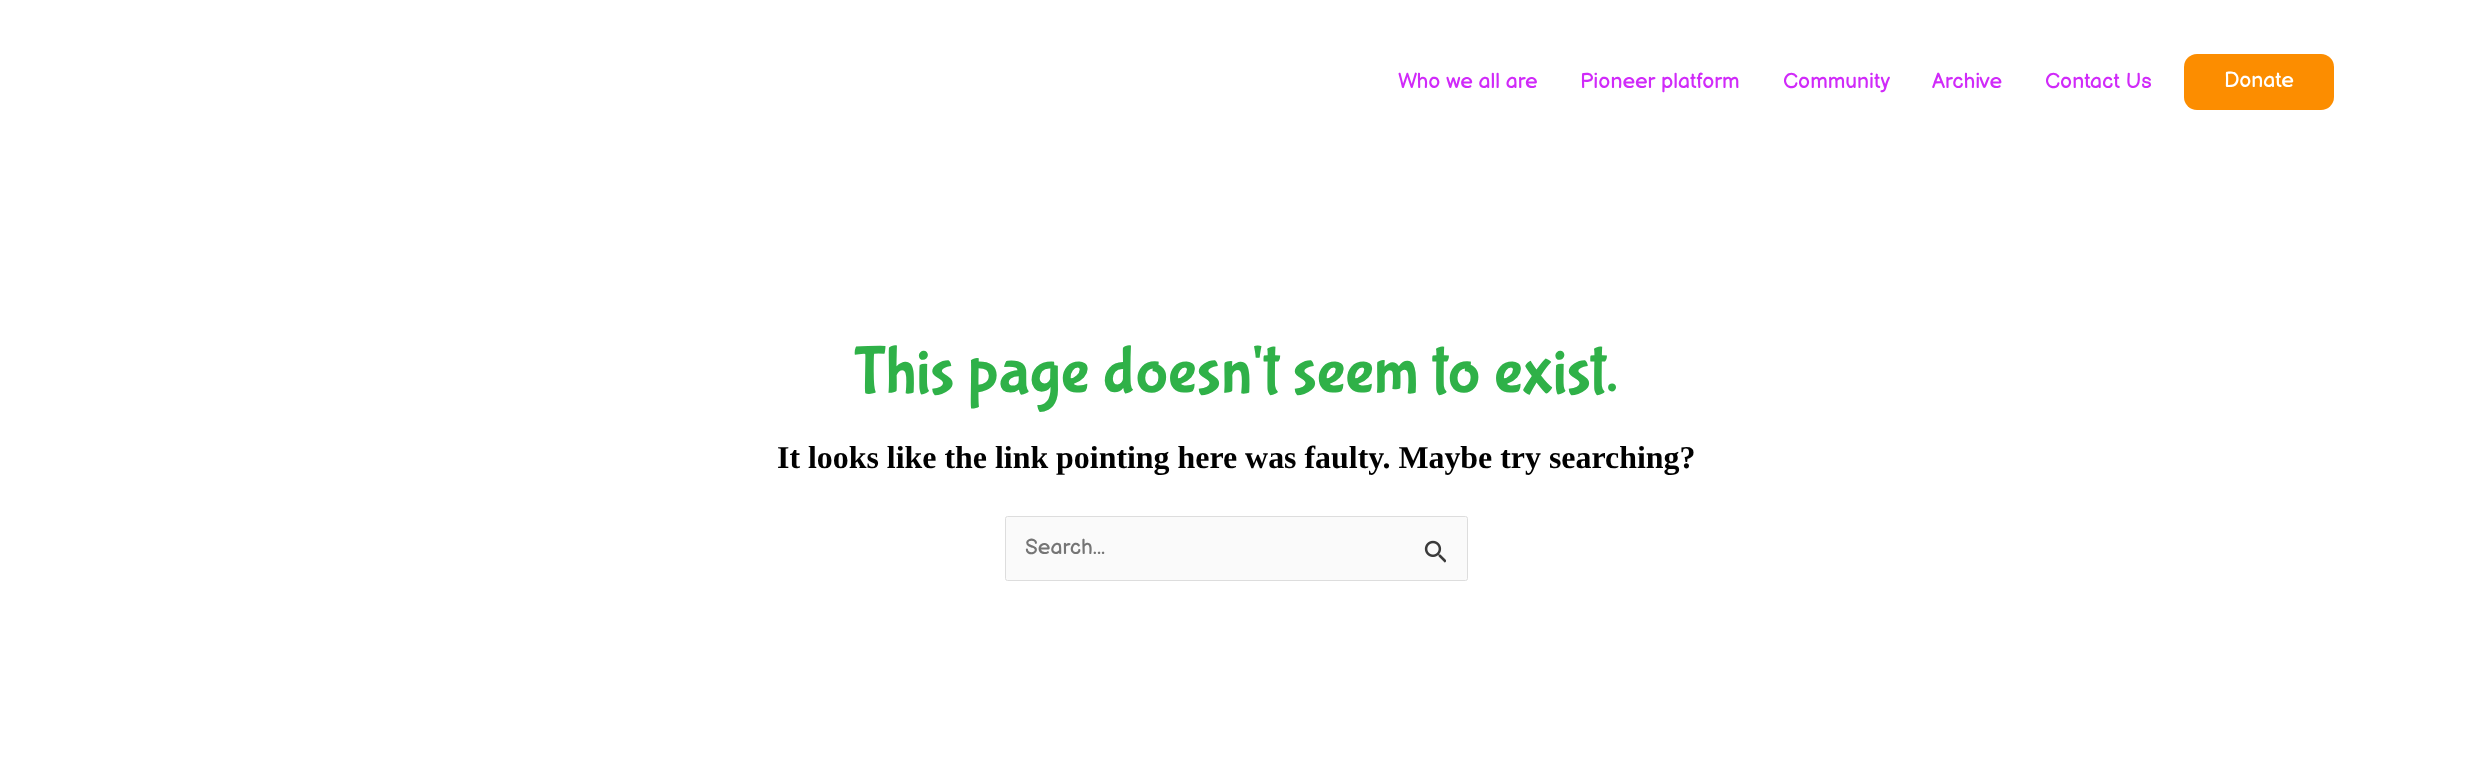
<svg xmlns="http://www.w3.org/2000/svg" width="2472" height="758">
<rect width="100%" height="100%" fill="#fff"/>
<text x="1398" y="88" style="font-family:Balsamiq Sans;font-size:21.25px;fill:#d02af9">Who we all are</text>
<text x="1580" y="88" style="font-family:Balsamiq Sans;font-size:21.25px;fill:#d02af9">Pioneer platform</text>
<text x="1783" y="88" style="font-family:Balsamiq Sans;font-size:21.25px;fill:#d02af9">Community</text>
<text x="1932" y="88" style="font-family:Balsamiq Sans;font-size:21.25px;fill:#d02af9">Archive</text>
<text x="2045" y="88" style="font-family:Balsamiq Sans;font-size:21.25px;fill:#d02af9">Contact Us</text>
<rect x="2184" y="54" width="150" height="56" rx="13" fill="#fc8d00"/>
<text x="2224" y="87" style="font-family:Balsamiq Sans;font-size:21.25px;fill:#fff">Donate</text>
<text x="854" y="391" style="font-family:Bubblegum Sans;font-size:67.5px;fill:#2fb148">This page doesn't seem to exist.</text>
<text x="777" y="468" style="font-family:Liberation Serif;font-size:31.9px;font-weight:bold;fill:#010101">It looks like the link pointing here was faulty. Maybe try searching?</text>
<rect x="1005.5" y="516.5" width="462" height="64" rx="2" fill="#fafafa" stroke="#ddd"/>
<text x="1025" y="554" style="font-family:Balsamiq Sans;font-size:21.25px;fill:#757575">Search...</text>
<image x="1424" y="540" width="22" height="23" href="media/1.png"/>
</svg>
